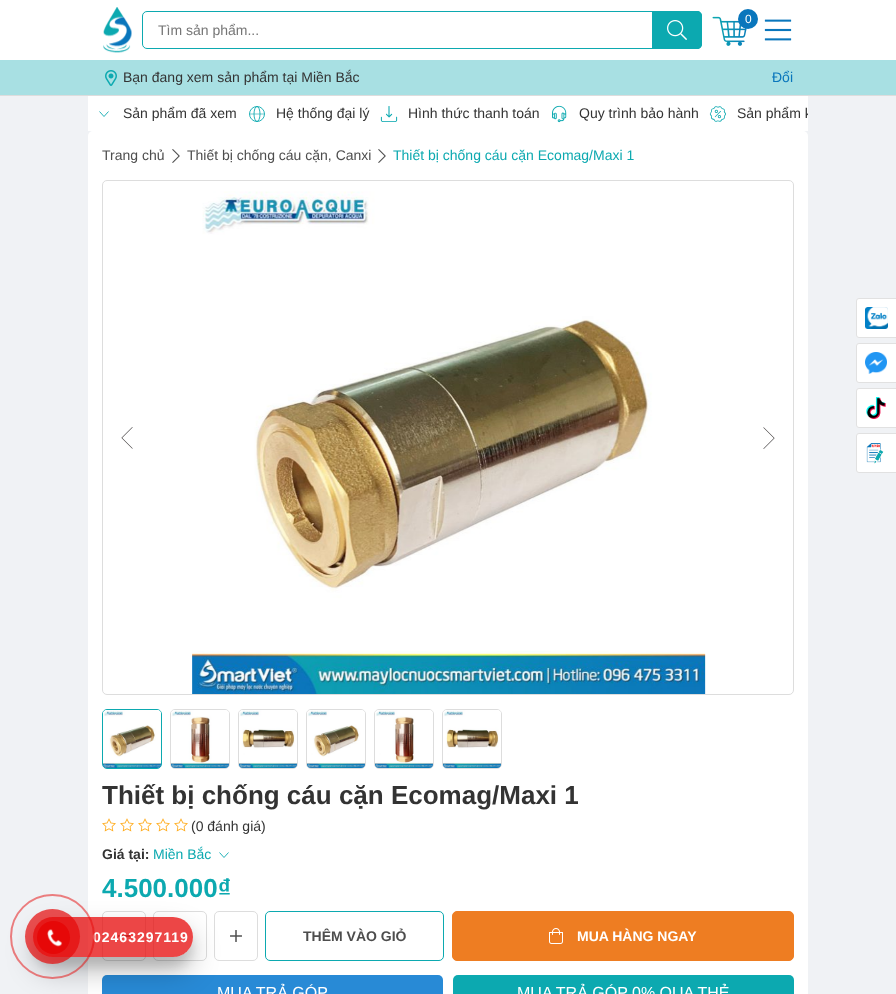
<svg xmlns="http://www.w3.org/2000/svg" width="896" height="994">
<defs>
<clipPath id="clip1"><rect x="88" y="96" width="720" height="35"/></clipPath>
<clipPath id="clip2"><path d="M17 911h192v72h-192zm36 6h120c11 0 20 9 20 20c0 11-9 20-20 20h-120c-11 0-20-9-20-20c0-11 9-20 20-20z" clip-rule="evenodd"/></clipPath>
<clipPath id="clip3"><path d="M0 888h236v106h-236zm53 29h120c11 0 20 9 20 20c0 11-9 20-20 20h-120c-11 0-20-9-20-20c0-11 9-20 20-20z" clip-rule="evenodd"/></clipPath>
</defs>
<rect width="100%" height="100%" fill="#f0f2f5"/>
<rect width="896" height="60" fill="#fff"/>
<rect y="95" width="896" height="1" fill="#ddd"/>
<image x="103" y="7" width="29" height="46" href="media/1.png"/>
<rect x="142.5" y="11.5" width="559" height="37" rx="4.5" fill="none" stroke="#0ca9b0"/>
<text x="158" y="35" style="font-family:Liberation Sans;font-size:14px;fill:#757575">Tìm sản phẩm...</text>
<path d="M652 11h45c3 0 5 2 5 5v28c0 3-2 5-5 5h-45z" fill="#0ca9b0"/>
<image x="667" y="20" width="20" height="20" href="media/2.png"/>
<image x="712" y="16" width="35" height="30" href="media/3.png"/>
<circle cx="748" cy="19" r="10" fill="#0976bc"/>
<text x="745" y="23" style="font-family:Liberation Sans;font-size:12px;fill:#fff">0</text>
<image x="764" y="19" width="28" height="22" href="media/4.png"/>
<rect y="60" width="896" height="35" fill="#a8e0e3"/>
<image x="105" y="70" width="12" height="16" href="media/5.png"/>
<text x="123" y="82" style="font-family:Liberation Sans;font-size:14px;fill:#333">Bạn đang xem sản phẩm tại Miền Bắc</text>
<text x="772" y="82" style="font-family:Liberation Sans;font-size:14px;fill:#0976bc">Đổi</text>
<rect x="88" y="96" width="720" height="35" fill="#fff"/>
<path d="M108.5 111.5l-4.5 5l-4.5-5" fill="none" stroke="#0ca9b0" stroke-width="0.9"/>
<text x="123" y="118" style="font-family:Liberation Sans;font-size:14px;fill:#333">Sản phẩm đã xem</text>
<circle cx="257" cy="114" r="7.5" fill="none" stroke="#0ca9b0" stroke-width="0.9"/>
<ellipse cx="257" cy="114" rx="3" ry="7.5" fill="none" stroke="#0ca9b0" stroke-width="0.9"/>
<path d="M249.5 114h15" fill="none" stroke="#0ca9b0" stroke-width="0.6"/>
<text x="276" y="118" style="font-family:Liberation Sans;font-size:14px;fill:#333">Hệ thống đại lý</text>
<image x="380" y="106" width="18" height="16" href="media/6.png"/>
<text x="408" y="118" style="font-family:Liberation Sans;font-size:14px;fill:#333">Hình thức thanh toán</text>
<image x="552" y="105" width="15" height="18" href="media/7.png"/>
<text x="579" y="118" style="font-family:Liberation Sans;font-size:14px;fill:#333">Quy trình bảo hành</text>
<image x="709" y="106" width="17" height="16" href="media/8.png"/>
<g clip-path="url(#clip1)">
<text x="737" y="118" style="font-family:Liberation Sans;font-size:14px;fill:#333">Sản phẩm k</text>
</g>
<rect x="88" y="131" width="720" height="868" rx="5" fill="#fff"/>
<text x="102" y="160" style="font-family:Liberation Sans;font-size:14px;fill:#4d4d4d">Trang chủ</text>
<image x="172" y="149" width="8" height="14" href="media/9.png"/>
<text x="187" y="160" style="font-family:Liberation Sans;font-size:14px;fill:#4d4d4d">Thiết bị chống cáu cặn, Canxi</text>
<image x="378" y="149" width="8" height="14" href="media/9.png"/>
<text x="393" y="160" style="font-family:Liberation Sans;font-size:14px;fill:#0ca9b0">Thiết bị chống cáu cặn Ecomag/Maxi 1</text>
<rect x="102.5" y="180.5" width="691" height="514" rx="4.5" fill="none" stroke="#ddd"/>
<image x="121" y="427" width="12" height="22" href="media/10.png"/>
<image x="192" y="191" width="514" height="503" href="media/11.png"/>
<image x="763" y="427" width="12" height="22" href="media/12.png"/>
<rect x="102.5" y="709.5" width="59" height="59" rx="4.5" fill="none" stroke="#0ca9b0"/>
<image x="103" y="710" width="58" height="58" href="media/13.png"/>
<rect x="170.5" y="709.5" width="59" height="59" rx="4.5" fill="none" stroke="#ddd"/>
<image x="171" y="710" width="58" height="58" href="media/14.png"/>
<rect x="238.5" y="709.5" width="59" height="59" rx="4.5" fill="none" stroke="#ddd"/>
<image x="239" y="710" width="58" height="58" href="media/15.png"/>
<rect x="306.5" y="709.5" width="59" height="59" rx="4.5" fill="none" stroke="#ddd"/>
<image x="307" y="710" width="58" height="58" href="media/16.png"/>
<rect x="374.5" y="709.5" width="59" height="59" rx="4.5" fill="none" stroke="#ddd"/>
<image x="375" y="710" width="58" height="58" href="media/17.png"/>
<rect x="442.5" y="709.5" width="59" height="59" rx="4.5" fill="none" stroke="#ddd"/>
<image x="443" y="710" width="58" height="58" href="media/18.png"/>
<text x="102" y="804" style="font-family:Liberation Sans;font-size:26px;font-weight:bold;fill:#333">Thiết bị chống cáu cặn Ecomag/Maxi 1</text>
<image x="102" y="818" width="14" height="14" href="media/19.png"/>
<image x="120" y="818" width="14" height="14" href="media/19.png"/>
<image x="138" y="818" width="14" height="14" href="media/19.png"/>
<image x="156" y="818" width="14" height="14" href="media/19.png"/>
<image x="174" y="818" width="14" height="14" href="media/19.png"/>
<text x="191" y="831" style="font-family:Liberation Sans;font-size:14px;fill:#333">(0 đánh giá)</text>
<text x="102" y="859" style="font-family:Liberation Sans;font-size:14px;font-weight:bold;fill:#333">Giá tại:</text>
<text x="153" y="859" style="font-family:Liberation Sans;font-size:14px;fill:#0ca9b0">Miền Bắc</text>
<path d="M228.5 852.5l-4.5 5l-4.5-5" fill="none" stroke="#0ca9b0" stroke-width="0.9"/>
<text x="102" y="897" style="font-family:Liberation Sans;font-size:26px;font-weight:bold;fill:#0ca9b0">4.500.000₫</text>
<rect x="102.5" y="911.5" width="43" height="49" rx="4.5" fill="none" stroke="#ddd"/>
<image x="118" y="935" width="12" height="2" href="media/20.png"/>
<rect x="153.5" y="911.5" width="53" height="49" rx="4.5" fill="none" stroke="#ddd"/>
<rect x="214.5" y="911.5" width="43" height="49" rx="4.5" fill="none" stroke="#ddd"/>
<image x="230" y="930" width="12" height="12" href="media/21.png"/>
<rect x="265.5" y="911.5" width="178" height="49" rx="4.5" fill="none" stroke="#0ca9b0"/>
<text x="303" y="941" style="font-family:Liberation Sans;font-size:14px;font-weight:bold;fill:#4d4d4d">THÊM VÀO GIỎ</text>
<rect x="452.5" y="911.5" width="341" height="49" rx="4.5" fill="#ee7d22" stroke="#ee7d22"/>
<image x="549" y="928" width="14" height="16" href="media/22.png"/>
<text x="577" y="941" style="font-family:Liberation Sans;font-size:14px;font-weight:bold;fill:#fff">MUA HÀNG NGAY</text>
<rect x="102" y="975" width="341" height="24" rx="5" fill="#288ad6"/>
<text x="217" y="998" style="font-family:Liberation Sans;font-size:16px;fill:#fff">MUA TRẢ GÓP</text>
<rect x="453" y="975" width="341" height="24" rx="5" fill="#0ca9b0"/>
<text x="517" y="998" style="font-family:Liberation Sans;font-size:16px;fill:#fff">MUA TRẢ GÓP 0% QUA THẺ</text>
<rect x="856.5" y="298.5" width="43" height="39" rx="2.5" fill="#fff" stroke="#e1e1e1"/>
<image x="865" y="307" width="23" height="22" href="media/23.png"/>
<rect x="856.5" y="343.5" width="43" height="39" rx="2.5" fill="#fff" stroke="#e1e1e1"/>
<image x="865" y="352" width="22" height="22" href="media/24.png"/>
<rect x="856.5" y="388.5" width="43" height="39" rx="2.5" fill="#fff" stroke="#e1e1e1"/>
<image x="866" y="397" width="20" height="22" href="media/25.png"/>
<rect x="856.5" y="433.5" width="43" height="39" rx="2.5" fill="#fff" stroke="#e1e1e1"/>
<image x="866" y="443" width="18" height="21" href="media/26.png"/>
<g clip-path="url(#clip2)">
<rect x="33" y="927" width="160" height="40" rx="20" fill="#0000001a" filter="blur(5px)"/>
</g>
<g clip-path="url(#clip3)">
<rect x="33" y="931" width="160" height="40" rx="20" fill="#00000040" filter="blur(14px)"/>
</g>
<rect x="33" y="917" width="160" height="40" rx="20" fill="#e60808bf"/>
<text x="93" y="942" style="font-family:Liberation Sans;font-size:14px;font-weight:bold;letter-spacing:1px;fill:#fff">02463297119</text>
<circle cx="52.5" cy="936.5" r="41.5" fill="none" stroke="#e6080880" stroke-width="2"/>
<circle cx="52.5" cy="936.5" r="27.5" fill="#e60808b3"/>
<circle cx="53.5" cy="937.5" r="16.5" fill="#e60808"/>
<image x="47" y="929" width="16" height="18" href="media/27.png"/>
</svg>
